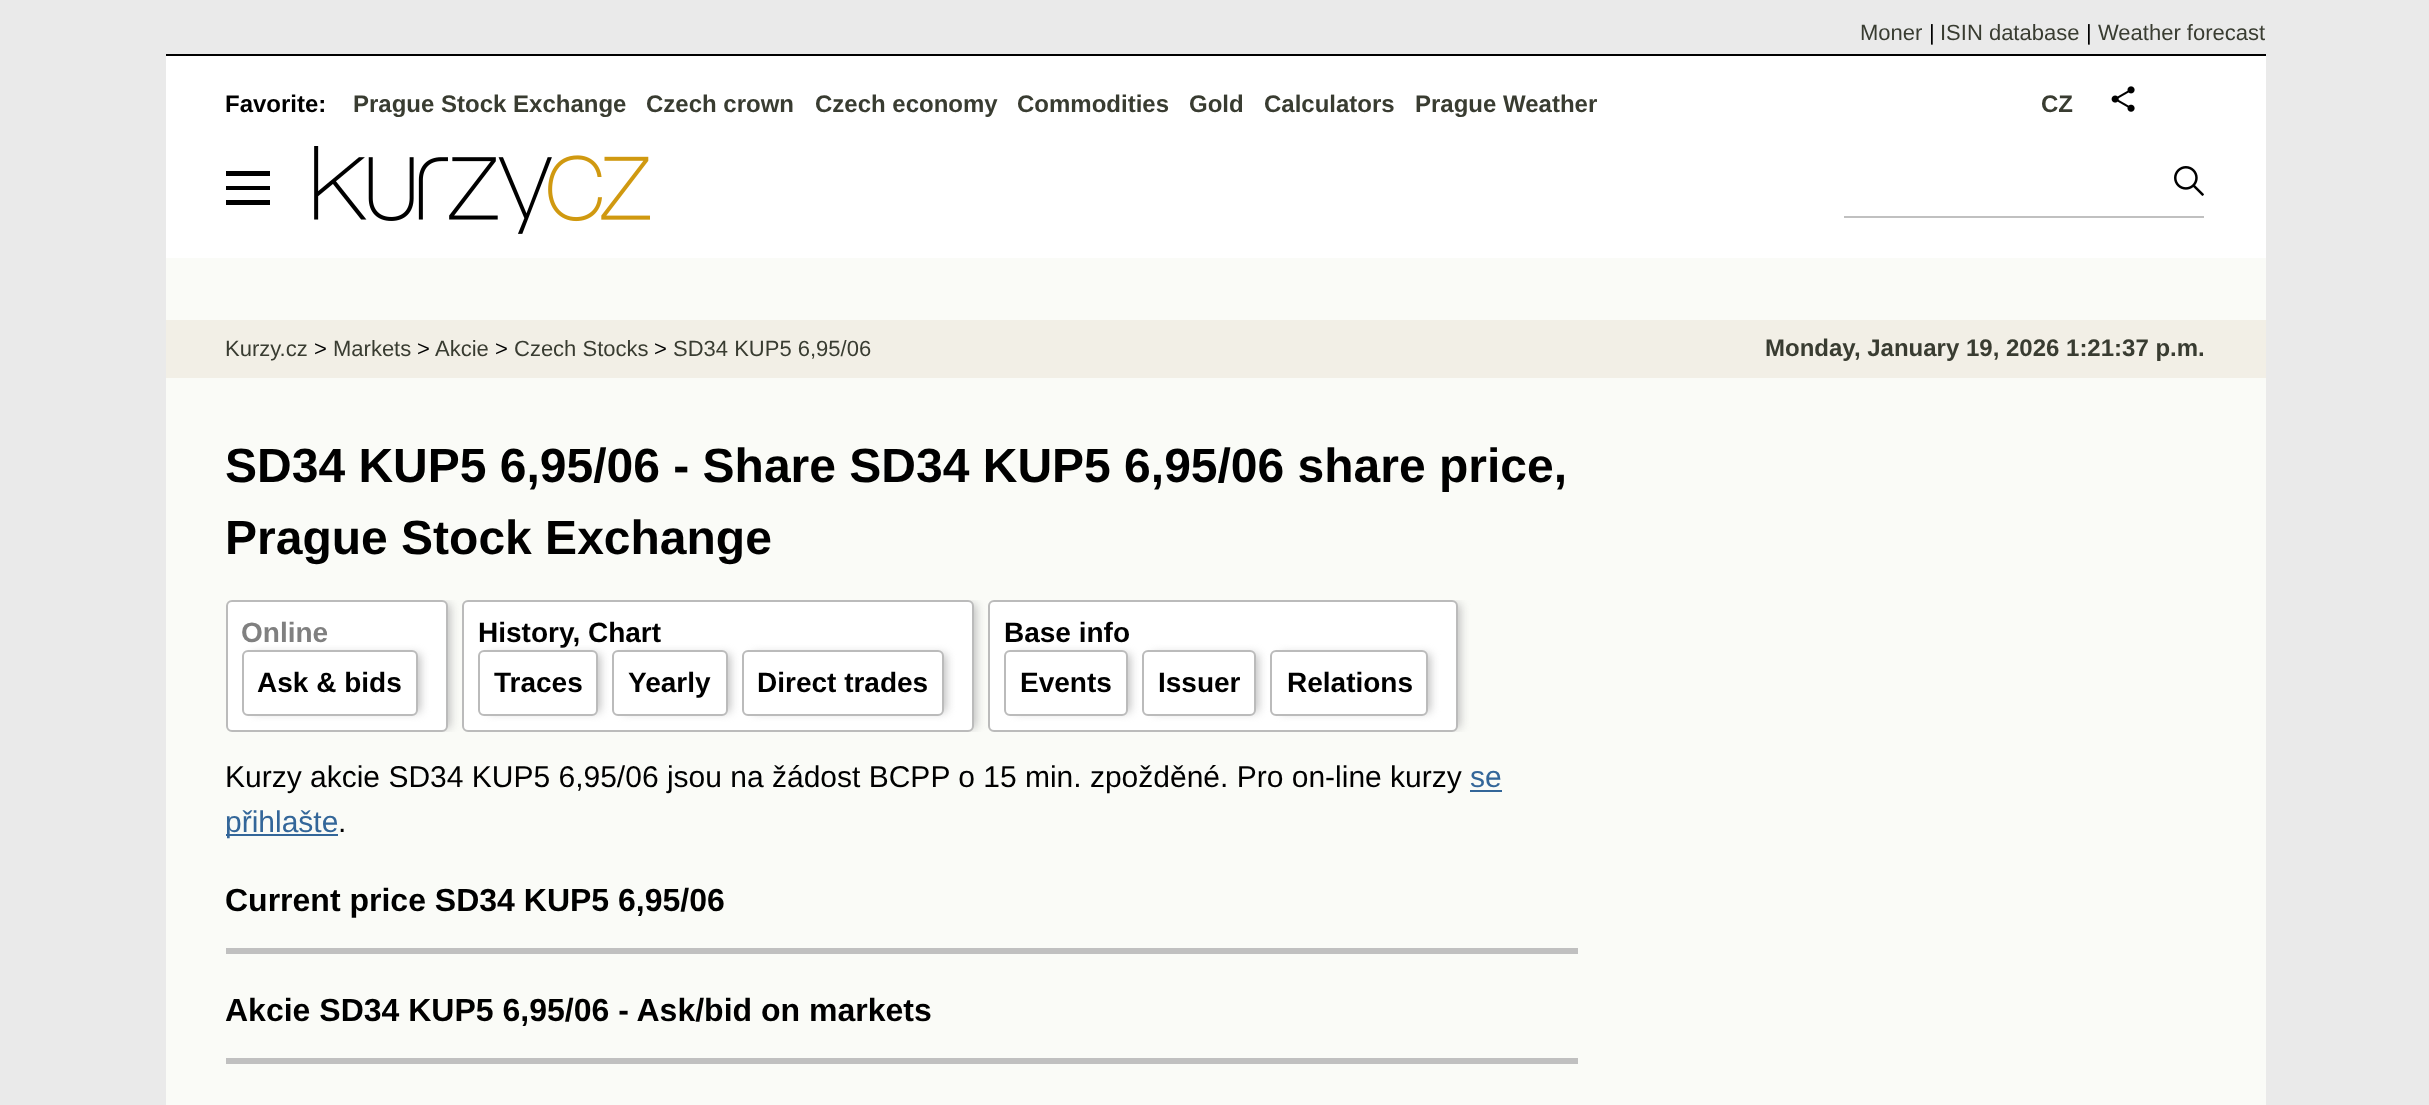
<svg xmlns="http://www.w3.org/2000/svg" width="2429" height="1105">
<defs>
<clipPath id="clip1"><rect x="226" y="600" width="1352" height="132"/></clipPath>
</defs>
<rect width="100%" height="100%" fill="#eaeaea"/>
<rect x="166" y="258" width="2100" height="847" fill="#fafbf7"/>
<rect x="166" y="54" width="2100" height="2" fill="#000"/>
<text x="1860" y="40" style="font-family:Liberation Sans;font-size:22px;fill:#393c31">Moner</text>
<text x="1929" y="40" style="font-family:Liberation Sans;font-size:22px;fill:#000">|</text>
<text x="1940" y="40" style="font-family:Liberation Sans;font-size:22px;fill:#393c31">ISIN database</text>
<text x="2086" y="40" style="font-family:Liberation Sans;font-size:22px;fill:#000">|</text>
<text x="2098" y="40" style="font-family:Liberation Sans;font-size:22px;fill:#393c31">Weather forecast</text>
<rect x="166" y="56" width="2100" height="202" fill="#fff"/>
<rect x="226" y="171" width="44" height="5" fill="#000"/>
<image x="314" y="146" width="336" height="88" href="media/1.png"/>
<rect x="1844" y="216" width="360" height="2" fill="#c0c0c0"/>
<image x="2174" y="166" width="30" height="30" href="media/2.png"/>
<rect x="226" y="186" width="44" height="4" fill="#000"/>
<rect x="226" y="200" width="44" height="5" fill="#000"/>
<text x="225" y="112" style="font-family:Liberation Sans;font-size:24px;font-weight:bold;fill:#000">Favorite:</text>
<text x="353" y="112" style="font-family:Liberation Sans;font-size:24px;font-weight:bold;fill:#393c31">Prague Stock Exchange</text>
<text x="646" y="112" style="font-family:Liberation Sans;font-size:24px;font-weight:bold;fill:#393c31">Czech crown</text>
<text x="815" y="112" style="font-family:Liberation Sans;font-size:24px;font-weight:bold;fill:#393c31">Czech economy</text>
<text x="1017" y="112" style="font-family:Liberation Sans;font-size:24px;font-weight:bold;fill:#393c31">Commodities</text>
<text x="1189" y="112" style="font-family:Liberation Sans;font-size:24px;font-weight:bold;fill:#393c31">Gold</text>
<text x="1264" y="112" style="font-family:Liberation Sans;font-size:24px;font-weight:bold;fill:#393c31">Calculators</text>
<text x="1415" y="112" style="font-family:Liberation Sans;font-size:24px;font-weight:bold;fill:#393c31">Prague Weather</text>
<text x="2041" y="112" style="font-family:Liberation Sans;font-size:24px;font-weight:bold;fill:#393c31">CZ</text>
<image x="2111" y="86" width="24" height="26" href="media/3.png"/>
<rect x="166" y="320" width="2100" height="58" fill="#f2efe6"/>
<text x="225" y="356" style="font-family:Liberation Sans;font-size:22px;fill:#393c31">Kurzy.cz</text>
<text x="314" y="356" style="font-family:Liberation Sans;font-size:22px;fill:#000">&gt;</text>
<text x="333" y="356" style="font-family:Liberation Sans;font-size:22px;fill:#393c31">Markets</text>
<text x="417" y="356" style="font-family:Liberation Sans;font-size:22px;fill:#000">&gt;</text>
<text x="435" y="356" style="font-family:Liberation Sans;font-size:22px;fill:#393c31">Akcie</text>
<text x="495" y="356" style="font-family:Liberation Sans;font-size:22px;fill:#000">&gt;</text>
<text x="514" y="356" style="font-family:Liberation Sans;font-size:22px;fill:#393c31">Czech Stocks</text>
<text x="654" y="356" style="font-family:Liberation Sans;font-size:22px;fill:#000">&gt;</text>
<text x="673" y="356" style="font-family:Liberation Sans;font-size:22px;fill:#393c31">SD34 KUP5 6,95/06</text>
<text x="1765" y="356" style="font-family:Liberation Sans;font-size:24px;font-weight:bold;fill:#393c31">Monday, January 19, 2026 1:21:37 p.m.</text>
<text x="225" y="482" style="font-family:Liberation Sans;font-size:48px;font-weight:bold;fill:#000">SD34 KUP5 6,95/06 - Share SD34 KUP5 6,95/06 share price,</text>
<text x="225" y="554" style="font-family:Liberation Sans;font-size:48px;font-weight:bold;fill:#000">Prague Stock Exchange</text>
<g clip-path="url(#clip1)">
<rect x="236" y="604" width="214" height="124" rx="2" fill="#bbb" filter="blur(5px)"/>
</g>
<rect x="227" y="601" width="220" height="130" rx="5" fill="#fff" stroke="#bbb" stroke-width="2"/>
<text x="241" y="642" style="font-family:Liberation Sans;font-size:28px;font-weight:bold;fill:#808080">Online</text>
<rect x="252" y="654" width="168" height="58" rx="2" fill="#bbb" filter="blur(5px)"/>
<rect x="243" y="651" width="174" height="64" rx="5" fill="#fff" stroke="#bbb" stroke-width="2"/>
<text x="257" y="692" style="font-family:Liberation Sans;font-size:28px;font-weight:bold;fill:#000">Ask &amp; bids</text>
<g clip-path="url(#clip1)">
<rect x="472" y="604" width="504" height="124" rx="2" fill="#bbb" filter="blur(5px)"/>
</g>
<rect x="463" y="601" width="510" height="130" rx="5" fill="#fff" stroke="#bbb" stroke-width="2"/>
<text x="478" y="642" style="font-family:Liberation Sans;font-size:28px;font-weight:bold;fill:#000">History, Chart</text>
<rect x="488" y="654" width="112" height="58" rx="2" fill="#bbb" filter="blur(5px)"/>
<rect x="479" y="651" width="118" height="64" rx="5" fill="#fff" stroke="#bbb" stroke-width="2"/>
<text x="494" y="692" style="font-family:Liberation Sans;font-size:28px;font-weight:bold;fill:#000">Traces</text>
<rect x="622" y="654" width="108" height="58" rx="2" fill="#bbb" filter="blur(5px)"/>
<rect x="613" y="651" width="114" height="64" rx="5" fill="#fff" stroke="#bbb" stroke-width="2"/>
<text x="628" y="692" style="font-family:Liberation Sans;font-size:28px;font-weight:bold;fill:#000">Yearly</text>
<rect x="752" y="654" width="194" height="58" rx="2" fill="#bbb" filter="blur(5px)"/>
<rect x="743" y="651" width="200" height="64" rx="5" fill="#fff" stroke="#bbb" stroke-width="2"/>
<text x="757" y="692" style="font-family:Liberation Sans;font-size:28px;font-weight:bold;fill:#000">Direct trades</text>
<g clip-path="url(#clip1)">
<rect x="998" y="604" width="462" height="124" rx="2" fill="#bbb" filter="blur(5px)"/>
</g>
<rect x="989" y="601" width="468" height="130" rx="5" fill="#fff" stroke="#bbb" stroke-width="2"/>
<text x="1004" y="642" style="font-family:Liberation Sans;font-size:28px;font-weight:bold;fill:#000">Base info</text>
<rect x="1014" y="654" width="116" height="58" rx="2" fill="#bbb" filter="blur(5px)"/>
<rect x="1005" y="651" width="122" height="64" rx="5" fill="#fff" stroke="#bbb" stroke-width="2"/>
<text x="1020" y="692" style="font-family:Liberation Sans;font-size:28px;font-weight:bold;fill:#000">Events</text>
<rect x="1152" y="654" width="106" height="58" rx="2" fill="#bbb" filter="blur(5px)"/>
<rect x="1143" y="651" width="112" height="64" rx="5" fill="#fff" stroke="#bbb" stroke-width="2"/>
<text x="1158" y="692" style="font-family:Liberation Sans;font-size:28px;font-weight:bold;fill:#000">Issuer</text>
<rect x="1280" y="654" width="150" height="58" rx="2" fill="#bbb" filter="blur(5px)"/>
<rect x="1271" y="651" width="156" height="64" rx="5" fill="#fff" stroke="#bbb" stroke-width="2"/>
<text x="1287" y="692" style="font-family:Liberation Sans;font-size:28px;font-weight:bold;fill:#000">Relations</text>
<text x="225" y="787" style="font-family:Liberation Sans;font-size:30px;fill:#000">Kurzy akcie SD34 KUP5 6,95/06 jsou na žádost BCPP o 15 min. zpožděné. Pro on-line kurzy</text>
<text x="1470" y="787" style="font-family:Liberation Sans;font-size:30px;fill:#369">se</text>
<rect x="1470" y="790" width="32" height="2" fill="#369"/>
<rect x="226" y="834" width="112" height="2" fill="#369"/>
<text x="225" y="832" style="font-family:Liberation Sans;font-size:30px;fill:#369">přihlašte</text>
<text x="338" y="832" style="font-family:Liberation Sans;font-size:30px;fill:#000">.</text>
<text x="225" y="911" style="font-family:Liberation Sans;font-size:32px;font-weight:bold;fill:#000">Current price SD34 KUP5 6,95/06</text>
<rect x="226" y="948" width="1352" height="6" fill="#c0c0c0"/>
<text x="225" y="1021" style="font-family:Liberation Sans;font-size:32px;font-weight:bold;fill:#000">Akcie SD34 KUP5 6,95/06 - Ask/bid on markets</text>
<rect x="226" y="1058" width="1352" height="6" fill="#c0c0c0"/>
</svg>
